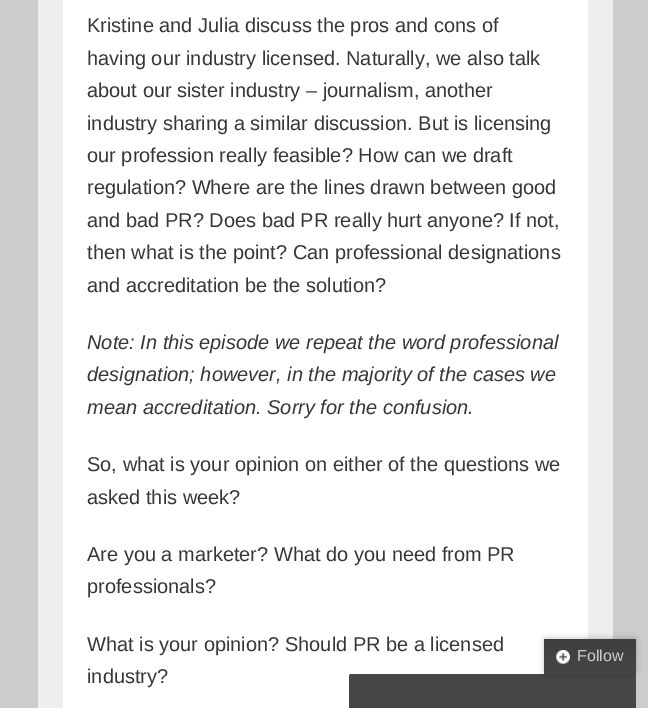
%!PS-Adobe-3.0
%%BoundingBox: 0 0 648 708
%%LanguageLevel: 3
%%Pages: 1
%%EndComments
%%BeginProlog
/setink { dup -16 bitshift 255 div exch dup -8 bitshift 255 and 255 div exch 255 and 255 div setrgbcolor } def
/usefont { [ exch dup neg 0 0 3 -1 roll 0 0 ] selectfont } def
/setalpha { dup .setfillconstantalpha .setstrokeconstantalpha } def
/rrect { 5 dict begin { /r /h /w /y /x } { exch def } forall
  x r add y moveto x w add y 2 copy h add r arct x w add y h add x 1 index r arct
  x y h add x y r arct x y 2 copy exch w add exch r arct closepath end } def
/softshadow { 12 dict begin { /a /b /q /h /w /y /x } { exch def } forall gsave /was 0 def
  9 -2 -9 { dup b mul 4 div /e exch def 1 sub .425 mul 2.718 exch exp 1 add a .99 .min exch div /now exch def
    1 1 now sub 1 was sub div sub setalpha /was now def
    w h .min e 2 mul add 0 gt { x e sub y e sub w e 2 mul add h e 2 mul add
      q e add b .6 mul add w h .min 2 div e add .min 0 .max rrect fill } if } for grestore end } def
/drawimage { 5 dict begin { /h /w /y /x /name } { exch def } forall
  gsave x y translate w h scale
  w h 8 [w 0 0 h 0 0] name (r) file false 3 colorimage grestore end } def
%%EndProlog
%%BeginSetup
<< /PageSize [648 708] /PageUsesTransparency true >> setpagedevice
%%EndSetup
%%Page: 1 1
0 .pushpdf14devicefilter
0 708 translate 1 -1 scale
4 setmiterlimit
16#CCCCCC setink
0 0 648 708 rectfill
16#EEEEEE setink
38 0 575 708 rectfill
16#FFFFFF setink
63 0 525 708 rectfill
/LiberationSans-Regular 20 usefont
16#373737 setink
[
    [(Kristine and Julia discuss the pros and cons of) 87 32]
    [(having our industry licensed. Naturally, we also talk) 87 65]
    [(about our sister industry – journalism, another) 87 97]
    [(industry sharing a similar discussion. But is licensing) 87 130]
    [(our profession really feasible? How can we draft) 87 162]
    [(regulation? Where are the lines drawn between good) 87 194]
    [(and bad PR? Does bad PR really hurt anyone? If not,) 87 227]
    [(then what is the point? Can professional designations) 87 259]
    [(and accreditation be the solution?) 87 292]
] { aload pop moveto show } forall
/LiberationSans-Italic 20 usefont
[
    [(Note: In this episode we repeat the word professional) 87 349]
    [(designation; however, in the majority of the cases we) 87 381]
    [(mean accreditation. Sorry for the confusion.) 87 414]
] { aload pop moveto show } forall
/LiberationSans-Regular 20 usefont
[
    [(So, what is your opinion on either of the questions we) 87 471]
    [(asked this week?) 87 504]
    [(Are you a marketer? What do you need from PR) 87 561]
    [(professionals?) 87 593]
    [(What is your opinion? Should PR be a licensed) 87 651]
    [(industry?) 87 683]
] { aload pop moveto show } forall
16#464646 setink
351.5 674 moveto 636 674 lineto 636 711 lineto 349 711 lineto 349 676.5 lineto 349 675 350 674 351.5 674 curveto closepath fill
16#000000 setink
544 638 92 35 2.5 3 0.2 softshadow
gsave 546.5 639 moveto 633.5 639 lineto 635 639 636 640 636 641.5 curveto 636 674 lineto 544 674 lineto 544 641.5 lineto 544 640 545 639 546.5 639 curveto closepath clip newpath
<< /ShadingType 2 /ColorSpace /DeviceRGB /Coords [544 639 544 674] /Extend [true true] /Function << /FunctionType 2 /Domain [0 1] /C0 [0.247 0.247 0.247] /C1 [0.275 0.275 0.275] /N 1 >> >> shfill grestore
(img1.raw) 556 650 14 14 drawimage
/LiberationSans-Regular 16 usefont
16#CCCCCC setink
577 661 moveto (Follow) show
.poppdf14devicefilter showpage
%%EOF
